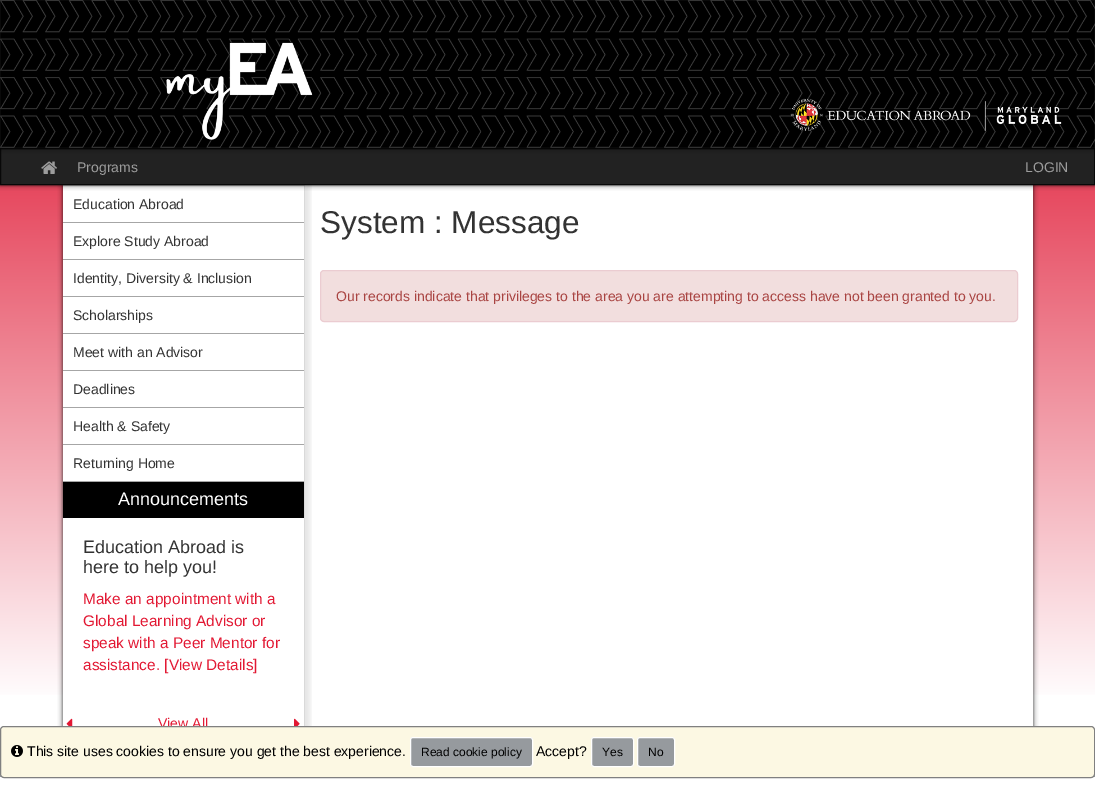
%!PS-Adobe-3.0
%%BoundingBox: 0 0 1095 798
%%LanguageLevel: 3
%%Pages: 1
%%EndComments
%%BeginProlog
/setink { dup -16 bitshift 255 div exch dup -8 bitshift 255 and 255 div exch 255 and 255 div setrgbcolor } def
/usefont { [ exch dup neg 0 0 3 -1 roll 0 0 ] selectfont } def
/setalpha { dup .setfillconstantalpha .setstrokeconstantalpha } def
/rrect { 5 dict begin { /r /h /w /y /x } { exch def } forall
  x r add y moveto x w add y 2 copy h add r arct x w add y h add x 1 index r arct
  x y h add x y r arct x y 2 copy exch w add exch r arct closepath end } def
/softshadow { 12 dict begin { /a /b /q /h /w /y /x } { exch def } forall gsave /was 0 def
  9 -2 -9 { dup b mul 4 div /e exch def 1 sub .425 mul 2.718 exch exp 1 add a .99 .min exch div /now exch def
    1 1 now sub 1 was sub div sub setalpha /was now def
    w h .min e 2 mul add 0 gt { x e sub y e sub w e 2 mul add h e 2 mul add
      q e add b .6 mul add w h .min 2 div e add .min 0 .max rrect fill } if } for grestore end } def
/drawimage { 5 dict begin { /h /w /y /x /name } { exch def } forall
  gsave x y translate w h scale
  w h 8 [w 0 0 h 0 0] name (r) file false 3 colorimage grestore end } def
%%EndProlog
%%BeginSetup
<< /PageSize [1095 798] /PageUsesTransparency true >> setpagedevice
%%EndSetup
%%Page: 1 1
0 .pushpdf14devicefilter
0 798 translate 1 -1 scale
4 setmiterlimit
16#FFFFFF setink
0 0 1095 798 rectfill
gsave 0 0 moveto 1095 0 lineto 1095 695 lineto 0 695 lineto closepath clip newpath
<< /ShadingType 2 /ColorSpace /DeviceRGB /Coords [548 0 548 798] /Extend [true true] /Function << /FunctionType 3 /Domain [0 1] /Functions [<< /FunctionType 2 /Domain [0 1] /C0 [0.878 0.094 0.204] /C1 [0.878 0.094 0.204] /N 1 >> << /FunctionType 2 /Domain [0 1] /C0 [0.878 0.094 0.204] /C1 [1 1 1] /N 1 >> << /FunctionType 2 /Domain [0 1] /C0 [1 1 1] /C1 [1 1 1] /N 1 >>] /Bounds [0.06 0.88] /Encode [0 1 0 1 0 1] >> >> shfill grestore
16#000000 setink
63 185 970 549 0 2.5 0.8 softshadow
16#FFFFFF setink
63 185 970 541 rectfill
gsave
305 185 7 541 rectclip
16#000000 setink
68 185 242 549 0 2.5 0.1 softshadow
grestore
16#D9D9D9 setink
63 185 moveto 305 185 lineto 304 186 lineto 63 186 lineto closepath fill
0.15 setalpha
16#000000 setink
305 185 moveto 305 734 lineto 304 733 lineto 304 186 lineto closepath fill
1 setalpha
0 148 1095 37 0 2.5 0.8 softshadow
16#222222 setink
0.5 148.5 moveto 1094.5 148.5 lineto 1094.5 184.5 lineto 0.5 184.5 lineto closepath gsave fill grestore
16#080808 setink
stroke
16#000000 setink
0 0 1095 148 0 2.5 0.8 softshadow
(img1.raw) 0 0 1095 148 drawimage
(img2.raw) 41 161 16 13 drawimage
/LiberationSans-Regular 14 usefont
16#9D9D9D setink
77 172 moveto (Programs) show
1025 172 moveto (LOGIN) show
16#A6A6A6 setink
63 222 241 1 rectfill
16#333333 setink
73 209 moveto (Education Abroad) show
16#A6A6A6 setink
63 259 241 1 rectfill
16#333333 setink
73 246 moveto (Explore Study Abroad) show
16#A6A6A6 setink
63 296 241 1 rectfill
16#333333 setink
73 283 moveto (Identity, Diversity & Inclusion) show
16#A6A6A6 setink
63 333 241 1 rectfill
16#333333 setink
73 320 moveto (Scholarships) show
16#A6A6A6 setink
63 370 241 1 rectfill
16#333333 setink
73 357 moveto (Meet with an Advisor) show
16#A6A6A6 setink
63 407 241 1 rectfill
16#333333 setink
73 394 moveto (Deadlines) show
16#A6A6A6 setink
63 444 241 1 rectfill
16#333333 setink
73 431 moveto (Health & Safety) show
16#A6A6A6 setink
63 481 241 1 rectfill
16#333333 setink
73 468 moveto (Returning Home) show
16#000000 setink
63 482 241 36 rectfill
/LiberationSans-Regular 18 usefont
16#FFFFFF setink
118 505 moveto (Announcements) show
16#333333 setink
83 553 moveto (Education Abroad is) show
83 573 moveto (here to help you!) show
/LiberationSans-Regular 15.4 usefont
16#E21833 setink
[
    [(Make an appointment with a) 83 604]
    [(Global Learning Advisor or) 83 626]
    [(speak with a Peer Mentor for) 83 648]
    [(assistance. [View Details]) 83 670]
] { aload pop moveto show } forall
(img3.raw) 66 718 7 8 drawimage
/LiberationSans-Regular 14 usefont
158 728 moveto (View All) show
(img4.raw) 294 718 6 8 drawimage
/LiberationSans-Regular 31.5 usefont
16#333333 setink
320 233 moveto (System : Message) show
16#F2DEDE setink
320.5 270.5 697 51 3.5 rrect gsave fill grestore
16#EBCCD1 setink
stroke
/LiberationSans-Regular 14 usefont
16#A94442 setink
336 301 moveto (Our records indicate that privileges to the area you are attempting to access have not been granted to you.) show
16#969A9E setink
0 775 1095 2 rectfill
16#FCF8E3 setink
0.5 726.5 1094 51 3.5 rrect gsave fill grestore
16#808080 setink
stroke
(img5.raw) 11 745 12 12 drawimage
16#000000 setink
27 756 moveto (This site uses cookies to ensure you get the best experience.) show
16#969A9E setink
410.5 737.5 122 29 2.5 rrect gsave fill grestore
16#FFFFFF setink
stroke
/LiberationSans-Regular 12 usefont
16#000000 setink
421 756 moveto (Read cookie policy) show
/LiberationSans-Regular 14 usefont
536 756 moveto (Accept?) show
16#969A9E setink
591.5 737.5 42 29 2.5 rrect gsave fill grestore
16#FFFFFF setink
stroke
/LiberationSans-Regular 12 usefont
16#000000 setink
602 756 moveto (Yes) show
16#969A9E setink
637.5 737.5 37 29 2.5 rrect gsave fill grestore
16#FFFFFF setink
stroke
16#000000 setink
648 756 moveto (No) show
.poppdf14devicefilter showpage
%%EOF
